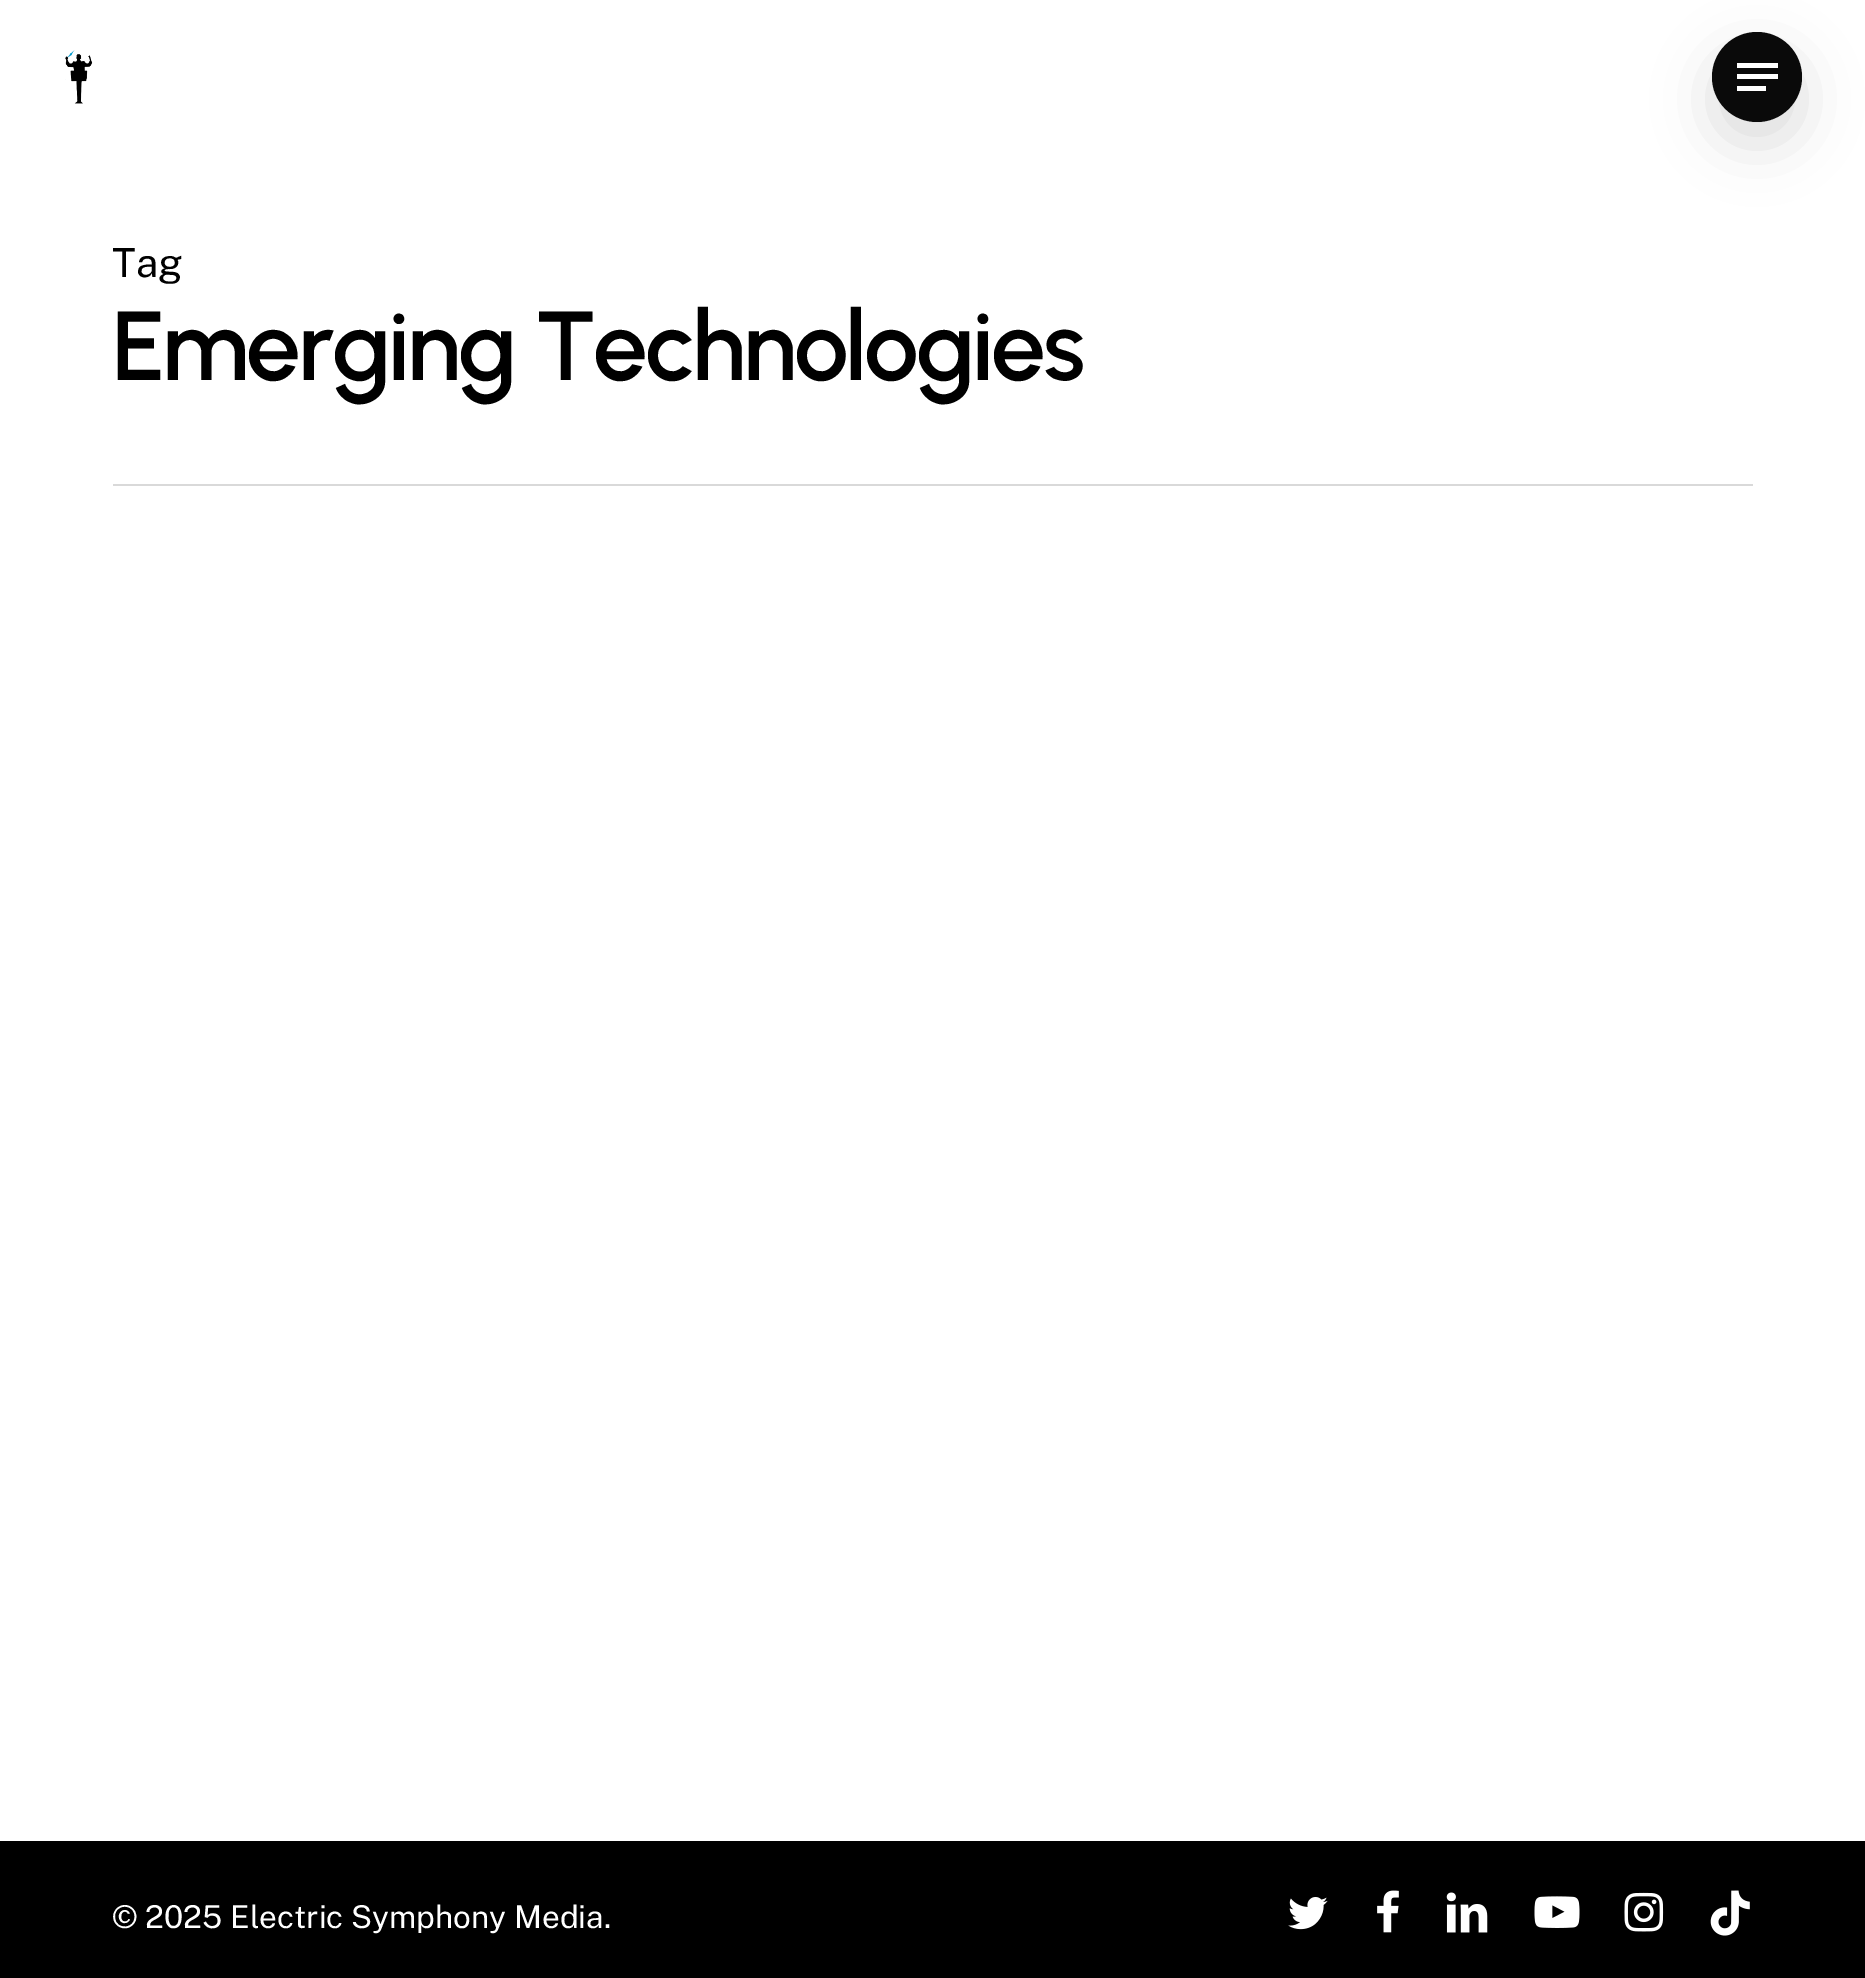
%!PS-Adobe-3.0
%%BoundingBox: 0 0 1865 1978
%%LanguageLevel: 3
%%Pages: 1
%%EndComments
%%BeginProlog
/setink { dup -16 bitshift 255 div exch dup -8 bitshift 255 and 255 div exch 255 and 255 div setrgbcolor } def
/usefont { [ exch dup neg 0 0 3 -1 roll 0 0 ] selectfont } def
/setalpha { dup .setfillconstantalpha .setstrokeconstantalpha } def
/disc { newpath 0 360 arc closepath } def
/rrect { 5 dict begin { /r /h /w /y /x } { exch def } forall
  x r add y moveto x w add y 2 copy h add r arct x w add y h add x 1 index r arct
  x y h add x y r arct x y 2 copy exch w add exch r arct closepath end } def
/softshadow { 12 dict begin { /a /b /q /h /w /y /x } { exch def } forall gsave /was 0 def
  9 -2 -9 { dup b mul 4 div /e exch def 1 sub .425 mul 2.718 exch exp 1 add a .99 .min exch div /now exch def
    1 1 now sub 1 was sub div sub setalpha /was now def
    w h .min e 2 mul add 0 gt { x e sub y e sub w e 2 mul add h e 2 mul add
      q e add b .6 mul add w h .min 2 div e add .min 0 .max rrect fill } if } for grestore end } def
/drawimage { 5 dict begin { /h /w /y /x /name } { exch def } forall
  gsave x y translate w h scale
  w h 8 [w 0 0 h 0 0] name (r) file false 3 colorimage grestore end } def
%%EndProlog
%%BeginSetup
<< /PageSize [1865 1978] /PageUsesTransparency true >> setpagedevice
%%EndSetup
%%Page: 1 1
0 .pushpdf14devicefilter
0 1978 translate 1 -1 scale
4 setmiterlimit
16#FFFFFF setink
0 0 1865 1978 rectfill
(img1.raw) 65 50 28 54 drawimage
16#000000 setink
1712 54 90 90 45 28 0.13 softshadow
16#0A0A0A setink
1757 77 45 disc fill
[
    [1737 63 41 5 16#FFFFFF]
    [1737 86 29 5 16#FFFFFF]
    [1737 74 41 5 16#FFFFFF]
    [113 484 1640 2 16#D9D9D9]
] { aload pop setink rectfill } forall
/PublicSans-Regular 40 usefont
16#000000 setink
112 277 moveto (Tag) show
/Urbanist-SemiBold 97.75 usefont
112 380 moveto -2.9 0 (Emerging Technologies) ashow
0 1841 1865 137 rectfill
/PublicSans-Regular 31.5 usefont
16#FFFFFF setink
112 1928 moveto (© 2025 Electric Symphony Media.) show
(img2.raw) 1288 1897 40 33 drawimage
(img3.raw) 1377 1890 22 43 drawimage
(img4.raw) 1446 1892 42 41 drawimage
(img5.raw) 1534 1896 46 32 drawimage
(img6.raw) 1624 1892 40 40 drawimage
(img7.raw) 1710 1890 40 46 drawimage
.poppdf14devicefilter showpage
%%EOF
